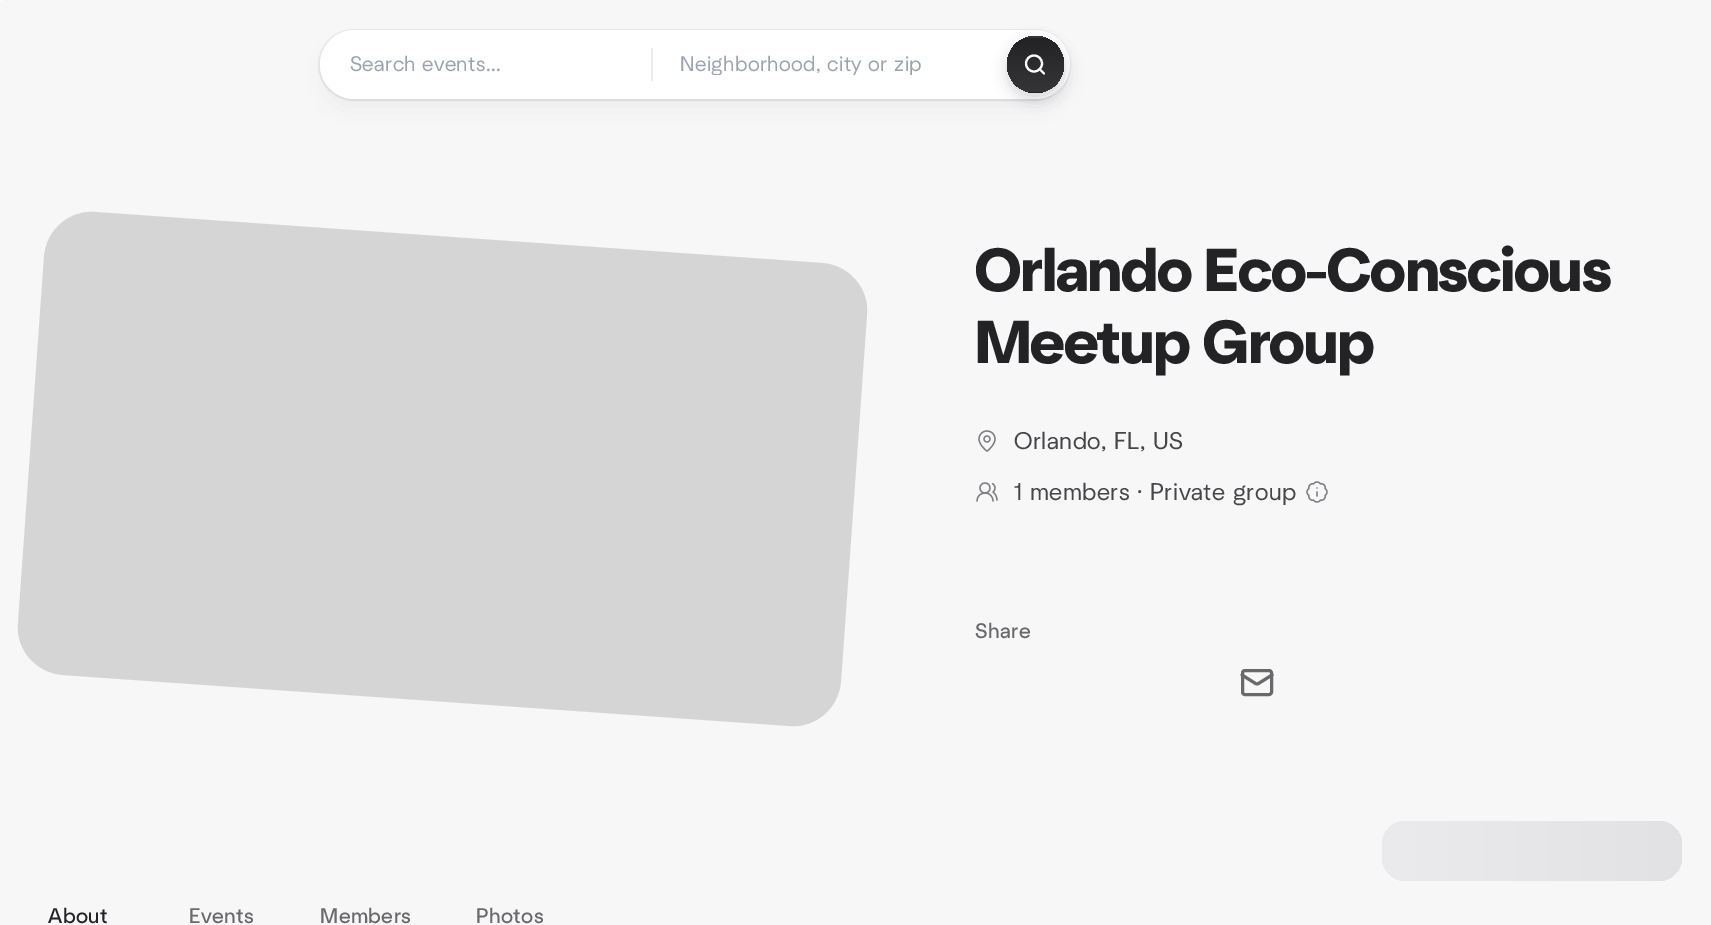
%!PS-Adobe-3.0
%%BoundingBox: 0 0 1711 925
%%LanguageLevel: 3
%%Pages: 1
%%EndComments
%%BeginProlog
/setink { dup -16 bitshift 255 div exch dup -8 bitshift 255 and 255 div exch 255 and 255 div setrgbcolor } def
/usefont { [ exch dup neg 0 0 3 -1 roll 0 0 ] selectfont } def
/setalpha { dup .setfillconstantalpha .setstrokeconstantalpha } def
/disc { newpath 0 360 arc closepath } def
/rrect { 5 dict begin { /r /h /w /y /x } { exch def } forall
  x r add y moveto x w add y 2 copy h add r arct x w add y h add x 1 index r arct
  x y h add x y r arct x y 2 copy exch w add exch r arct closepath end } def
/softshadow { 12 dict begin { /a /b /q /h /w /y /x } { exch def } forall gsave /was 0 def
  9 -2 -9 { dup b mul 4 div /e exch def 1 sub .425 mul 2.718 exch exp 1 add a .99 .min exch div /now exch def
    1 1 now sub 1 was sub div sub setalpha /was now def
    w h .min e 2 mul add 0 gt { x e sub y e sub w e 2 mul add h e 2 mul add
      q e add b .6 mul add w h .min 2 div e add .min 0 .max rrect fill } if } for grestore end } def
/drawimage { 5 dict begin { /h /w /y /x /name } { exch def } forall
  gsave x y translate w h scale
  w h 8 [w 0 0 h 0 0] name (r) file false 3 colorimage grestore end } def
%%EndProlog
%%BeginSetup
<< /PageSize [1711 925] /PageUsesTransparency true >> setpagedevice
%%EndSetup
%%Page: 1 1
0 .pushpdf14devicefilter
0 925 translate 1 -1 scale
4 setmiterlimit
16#F7F7F8 setink
0 0 1711 925 rectfill
16#FFFFFF setink
0 0 2 1 rectfill
16#E8E8EA setink
2 setlinewidth
319 30 751 70 35 rrect stroke
16#000010 setink
326 48 738 57 28.5 12 0.06 softshadow
16#FFFFFF setink
320 30 750 69 34.5 rrect fill
16#EBEBEE setink
651 48 2 33 rectfill
/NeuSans-Regular 21 usefont
16#9CA3AF setink
350 71 moveto 0.4 0 (Search events...) ashow
gsave
680 54 303 21 rectclip
680 71 moveto 0.4 0 (Neighborhood, city or zip) ashow
grestore
16#000010 setink
1007 42 57 57 28.5 7.5 0.16 softshadow
gsave
1007 36 57 57 28.5 rrect clip newpath
gsave 1025 36 moveto 1046 36 lineto 1046 38 lineto 1025 38 lineto closepath clip newpath
<< /ShadingType 2 /ColorSpace /DeviceRGB /Coords [1035 -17 1035 38] /Extend [true true] /Function << /FunctionType 2 /Domain [0 1] /C0 [0.137 0.137 0.149] /C1 [0.208 0.208 0.22] /N 1 >> >> shfill grestore
gsave 1007 38 moveto 1064 38 lineto 1064 92 lineto 1007 92 lineto closepath clip newpath
<< /ShadingType 2 /ColorSpace /DeviceRGB /Coords [1035 37 1035 92] /Extend [true true] /Function << /FunctionType 2 /Domain [0 1] /C0 [0.137 0.137 0.149] /C1 [0.208 0.208 0.22] /N 1 >> >> shfill grestore
gsave 1028 92 moveto 1043 92 lineto 1043 93 lineto 1028 93 lineto closepath clip newpath
<< /ShadingType 2 /ColorSpace /DeviceRGB /Coords [1035 92 1035 146] /Extend [true true] /Function << /FunctionType 2 /Domain [0 1] /C0 [0.137 0.137 0.149] /C1 [0.208 0.208 0.22] /N 1 >> >> shfill grestore
grestore
16#FFFFFF setink
2.1 setlinewidth
1 setlinecap
1 setlinejoin
1044 73.5 moveto 1039.5 69 lineto stroke
0 setlinecap
0 setlinejoin
1034 63.5 8 disc stroke
16#D5D5D6 setink
95 212 moveto 822 263 lineto 849 265 869 288 867 314 curveto 841 681 lineto 839 708 816 728 790 726 curveto 63 675 lineto 36 673 16 650 18 624 curveto 44 257 lineto 46 230 69 210 95 212 curveto closepath fill
/NeuSans-Bold 60 usefont
16#232326 setink
975 291 moveto -1.2 0 (Orlando Eco-Conscious) ashow
975 363 moveto -1.2 0 (Meetup Group) ashow
(img1.raw) 978 430 18 22 drawimage
/NeuSans-Regular 24 usefont
16#464649 setink
1014 449 moveto 0.5 0 (Orlando, FL, US) ashow
(img2.raw) 976 482 22 20 drawimage
1014 500 moveto 0.5 0 (1 members · Private group) ashow
(img3.raw) 1306 481 22 22 drawimage
/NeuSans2-Regular 21 usefont
16#69696C setink
975 638 moveto 0.4 0 (Share) ashow
3 setlinewidth
1 setlinecap
1 setlinejoin
1272 675 moveto 1258.5 683.5 lineto 1257.5 684 1256.5 684 1255.5 683.5 curveto 1242 675 lineto stroke
0 setlinecap
0 setlinejoin
1242.5 670.5 29 24 2.5 rrect stroke
gsave 1382 821 300 60 24 rrect clip newpath
<< /ShadingType 2 /ColorSpace /DeviceRGB /Coords [1382 851 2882 851] /Extend [true true] /Function << /FunctionType 3 /Domain [0 1] /Functions [<< /FunctionType 2 /Domain [0 1] /C0 [0.922 0.922 0.933] /C1 [0.867 0.867 0.882] /N 1 >> << /FunctionType 2 /Domain [0 1] /C0 [0.867 0.867 0.882] /C1 [0.922 0.922 0.933] /N 1 >> << /FunctionType 2 /Domain [0 1] /C0 [0.922 0.922 0.933] /C1 [0.922 0.922 0.933] /N 1 >>] /Bounds [0.3 0.6] /Encode [0 1 0 1 0 1] >> >> shfill grestore
16#232326 setink
48 923 moveto 0.4 0 (About) ashow
16#69696C setink
189 923 moveto 0.4 0 (Events) ashow
320 923 moveto 0.4 0 (Members) ashow
476 923 moveto 0.4 0 (Photos) ashow
.poppdf14devicefilter showpage
%%EOF
